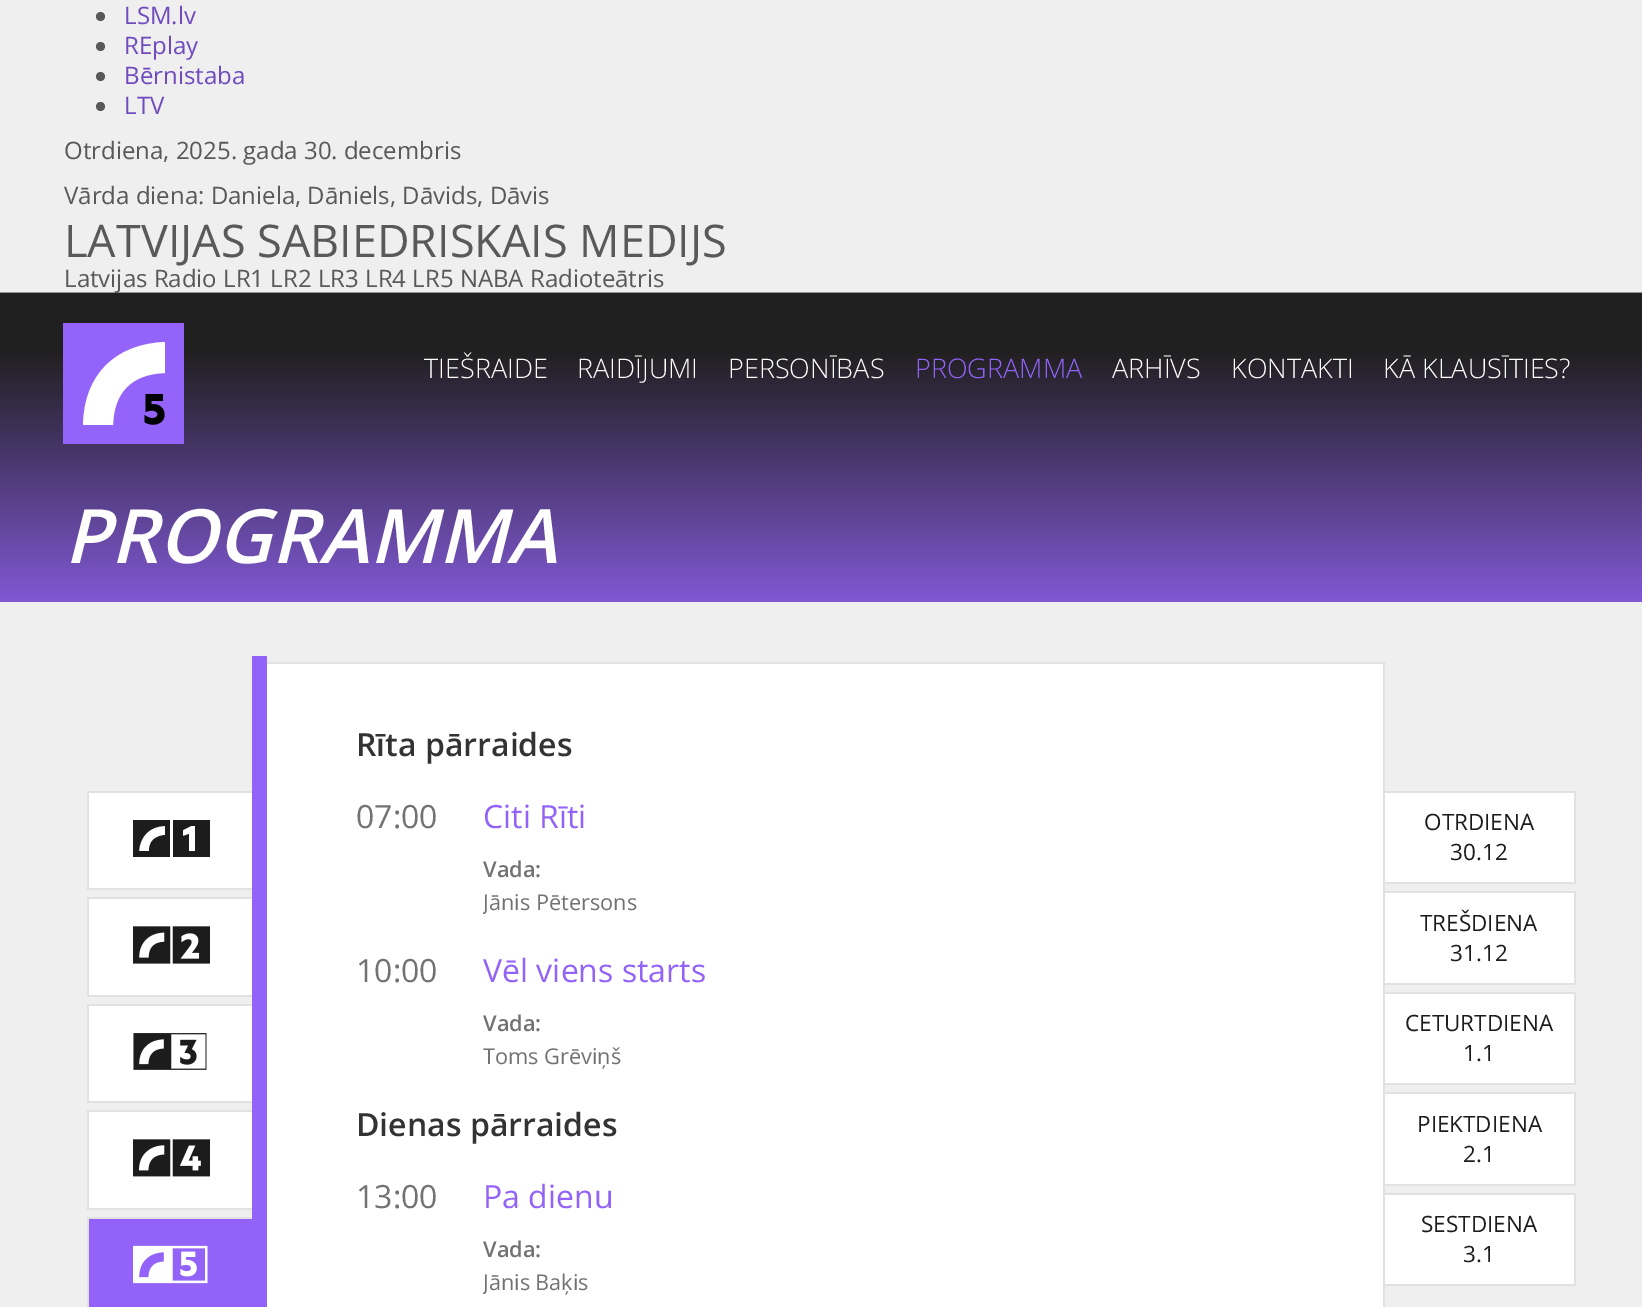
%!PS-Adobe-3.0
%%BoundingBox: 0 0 1642 1307
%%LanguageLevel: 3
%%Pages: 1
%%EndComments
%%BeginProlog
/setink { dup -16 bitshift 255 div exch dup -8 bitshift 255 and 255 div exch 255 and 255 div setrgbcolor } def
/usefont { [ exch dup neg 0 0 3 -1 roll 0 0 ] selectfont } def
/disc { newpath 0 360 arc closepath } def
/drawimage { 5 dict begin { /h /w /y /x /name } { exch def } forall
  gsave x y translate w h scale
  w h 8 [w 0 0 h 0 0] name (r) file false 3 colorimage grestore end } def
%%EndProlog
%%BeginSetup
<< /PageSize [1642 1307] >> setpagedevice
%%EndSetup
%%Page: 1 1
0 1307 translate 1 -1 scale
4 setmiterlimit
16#EFEFEF setink
0 0 1642 1307 rectfill
16#595959 setink
100.5 16.5 4.5 disc fill
/OpenSans-Regular 24 usefont
16#704BBE setink
124 24 moveto (LSM.lv) show
16#595959 setink
100.5 46.5 4.5 disc fill
16#704BBE setink
124 54 moveto (REplay) show
16#595959 setink
100.5 76.5 4.5 disc fill
16#704BBE setink
124 84 moveto (Bērnistaba) show
16#595959 setink
100.5 106.5 4.5 disc fill
16#704BBE setink
124 114 moveto (LTV) show
16#595959 setink
64 159 moveto (Otrdiena, 2025. gada 30. decembris) show
64 204 moveto (Vārda diena: Daniela, Dāniels, Dāvids, Dāvis) show
/OpenSans-Regular 45 usefont
64 257 moveto (LATVIJAS SABIEDRISKAIS MEDIJS) show
/OpenSans-Regular 24 usefont
64 287 moveto (Latvijas Radio LR1 LR2 LR3 LR4 LR5 NABA Radioteātris) show
(img1.raw) 0 292 1642 1 drawimage
gsave 0 293 moveto 1642 293 lineto 1642 602 lineto 0 602 lineto closepath clip newpath
<< /ShadingType 2 /ColorSpace /DeviceRGB /Coords [821 292 821 602] /Extend [true true] /Function << /FunctionType 3 /Domain [0 1] /Functions [<< /FunctionType 2 /Domain [0 1] /C0 [0.129 0.125 0.125] /C1 [0.129 0.125 0.125] /N 1 >> << /FunctionType 2 /Domain [0 1] /C0 [0.129 0.125 0.125] /C1 [0.502 0.345 0.827] /N 1 >>] /Bounds [0.19] /Encode [0 1 0 1] >> >> shfill grestore
16#9464FA setink
63 323 121 121 rectfill
16#FFFFFF setink
83 425 moveto 113 425 lineto 114 392 132 374 165 373 curveto 165 342 lineto 115 344 84 375 83 425 curveto closepath fill
16#000000 setink
164.5 414.5 moveto 164.5 425 151.5 427 144.5 422 curveto 144.5 415 lineto 146.5 416.5 149 418 151.5 418 curveto 161 419 159.5 406.5 145.5 412 curveto 145.5 394 lineto 163 394 lineto 163 401 lineto 151.5 401 lineto 151.5 404.5 lineto 158 403 164.5 407.5 164.5 414.5 curveto fill
/OpenSans-Light 27 usefont
16#FFFFFF setink
[
    [(TIEŠRAIDE) 424 378]
    [(RAIDĪJUMI) 577 378]
    [(PERSONĪBAS) 728 378]
] { aload pop moveto show } forall
16#9363F9 setink
915 378 moveto (PROGRAMMA) show
16#FFFFFF setink
[
    [(ARHĪVS) 1112 378]
    [(KONTAKTI) 1231 378]
    [(KĀ KLAUSĪTIES?) 1383 378]
] { aload pop moveto show } forall
/OpenSans-SemiBoldItalic 75 usefont
64 563 moveto (PROGRAMMA) show
[
    [252 656 15 651 16#9363F9]
    [89 793 163 95 16#FFFFFF]
    [87 791 165 2 16#E1E1E1]
    [87 888 165 2 16#E1E1E1]
    [87 791 2 99 16#E1E1E1]
] { aload pop setink rectfill } forall
16#1C1C1C setink
133 820 moveto 133 857 lineto 170 857 lineto 170 820 lineto closepath 165 835 moveto 155 836 149 841 149 851 curveto 139 851 lineto 140 836 150 826 165 826 curveto closepath 173 820 moveto 173 857 lineto 210 857 lineto 210 820 lineto closepath 195 851 moveto 189 851 lineto 189 834 lineto 183 836 lineto 183 830 lineto 191 826 lineto 195 826 lineto closepath fill
[
    [89 899 163 96 16#FFFFFF]
    [87 897 165 2 16#E1E1E1]
    [87 995 165 2 16#E1E1E1]
    [87 897 2 99 16#E1E1E1]
] { aload pop setink rectfill } forall
(img2.raw) 133 926 77 38 drawimage
[
    [89 1006 163 95 16#FFFFFF]
    [87 1004 165 2 16#E1E1E1]
    [87 1101 165 2 16#E1E1E1]
    [87 1004 2 99 16#E1E1E1]
] { aload pop setink rectfill } forall
(img3.raw) 133 1033 74 37 drawimage
[
    [89 1112 163 96 16#FFFFFF]
    [87 1110 165 2 16#E1E1E1]
    [87 1208 165 2 16#E1E1E1]
    [87 1110 2 99 16#E1E1E1]
] { aload pop setink rectfill } forall
(img4.raw) 133 1139 77 38 drawimage
[
    [89 1219 163 88 16#9363F9]
    [87 1217 165 2 16#E1E1E1]
    [87 1217 2 90 16#E1E1E1]
] { aload pop setink rectfill } forall
(img5.raw) 133 1245 75 39 drawimage
[
    [267 664 1116 643 16#FFFFFF]
    [267 662 1118 2 16#E1E1E1]
    [1383 662 2 645 16#E1E1E1]
] { aload pop setink rectfill } forall
/OpenSans-SemiBold 32 usefont
16#333333 setink
356 756 moveto (Rīta pārraides) show
/OpenSans-Regular 32 usefont
16#727272 setink
356 828 moveto (07:00) show
16#9363F9 setink
483 828 moveto (Citi Rīti) show
/OpenSans-SemiBold 21.75 usefont
16#727272 setink
483 877 moveto (Vada:) show
gsave
483 888 855 32 rectclip
/OpenSans-Regular 21.75 usefont
483 910 moveto (Jānis Pētersons) show
grestore
/OpenSans-Regular 32 usefont
356 982 moveto (10:00) show
16#9363F9 setink
483 982 moveto (Vēl viens starts) show
/OpenSans-SemiBold 21.75 usefont
16#727272 setink
483 1031 moveto (Vada:) show
/OpenSans-Regular 21.75 usefont
483 1064 moveto (Toms Grēviņš) show
/OpenSans-SemiBold 32 usefont
16#333333 setink
356 1136 moveto (Dienas pārraides) show
/OpenSans-Regular 32 usefont
16#727272 setink
356 1208 moveto (13:00) show
16#9363F9 setink
483 1208 moveto (Pa dienu) show
/OpenSans-SemiBold 21.75 usefont
16#727272 setink
483 1257 moveto (Vada:) show
gsave
483 1268 855 31 rectclip
/OpenSans-Regular 21.75 usefont
483 1290 moveto (Jānis) show
grestore
/OpenSans-Regular 21.75 usefont
535 1290 moveto (Baķis) show
[
    [1385 793 189 89 16#FFFFFF]
    [1385 791 190 2 16#E1E1E1]
    [1574 791 2 93 16#E1E1E1]
    [1385 882 190 2 16#E1E1E1]
] { aload pop setink rectfill } forall
/OpenSans-Regular 22.5 usefont
16#1C1C1C setink
1424 830 moveto (OTRDIENA) show
1450 860 moveto (30.12) show
[
    [1385 893 189 90 16#FFFFFF]
    [1385 891 190 2 16#E1E1E1]
    [1574 891 2 93 16#E1E1E1]
    [1385 983 190 2 16#E1E1E1]
] { aload pop setink rectfill } forall
16#1C1C1C setink
1420 931 moveto (TREŠDIENA) show
1450 961 moveto (31.12) show
[
    [1385 994 189 89 16#FFFFFF]
    [1385 992 190 2 16#E1E1E1]
    [1574 992 2 93 16#E1E1E1]
    [1385 1083 190 2 16#E1E1E1]
] { aload pop setink rectfill } forall
16#1C1C1C setink
1405 1031 moveto (CETURTDIENA) show
1463 1061 moveto (1.1) show
[
    [1385 1094 189 90 16#FFFFFF]
    [1385 1092 190 2 16#E1E1E1]
    [1574 1092 2 93 16#E1E1E1]
    [1385 1184 190 2 16#E1E1E1]
] { aload pop setink rectfill } forall
16#1C1C1C setink
1417 1132 moveto (PIEKTDIENA) show
1463 1162 moveto (2.1) show
[
    [1385 1195 189 89 16#FFFFFF]
    [1385 1193 190 2 16#E1E1E1]
    [1574 1193 2 93 16#E1E1E1]
    [1385 1284 190 2 16#E1E1E1]
] { aload pop setink rectfill } forall
16#1C1C1C setink
1421 1232 moveto (SESTDIENA) show
1463 1262 moveto (3.1) show
showpage
%%EOF
